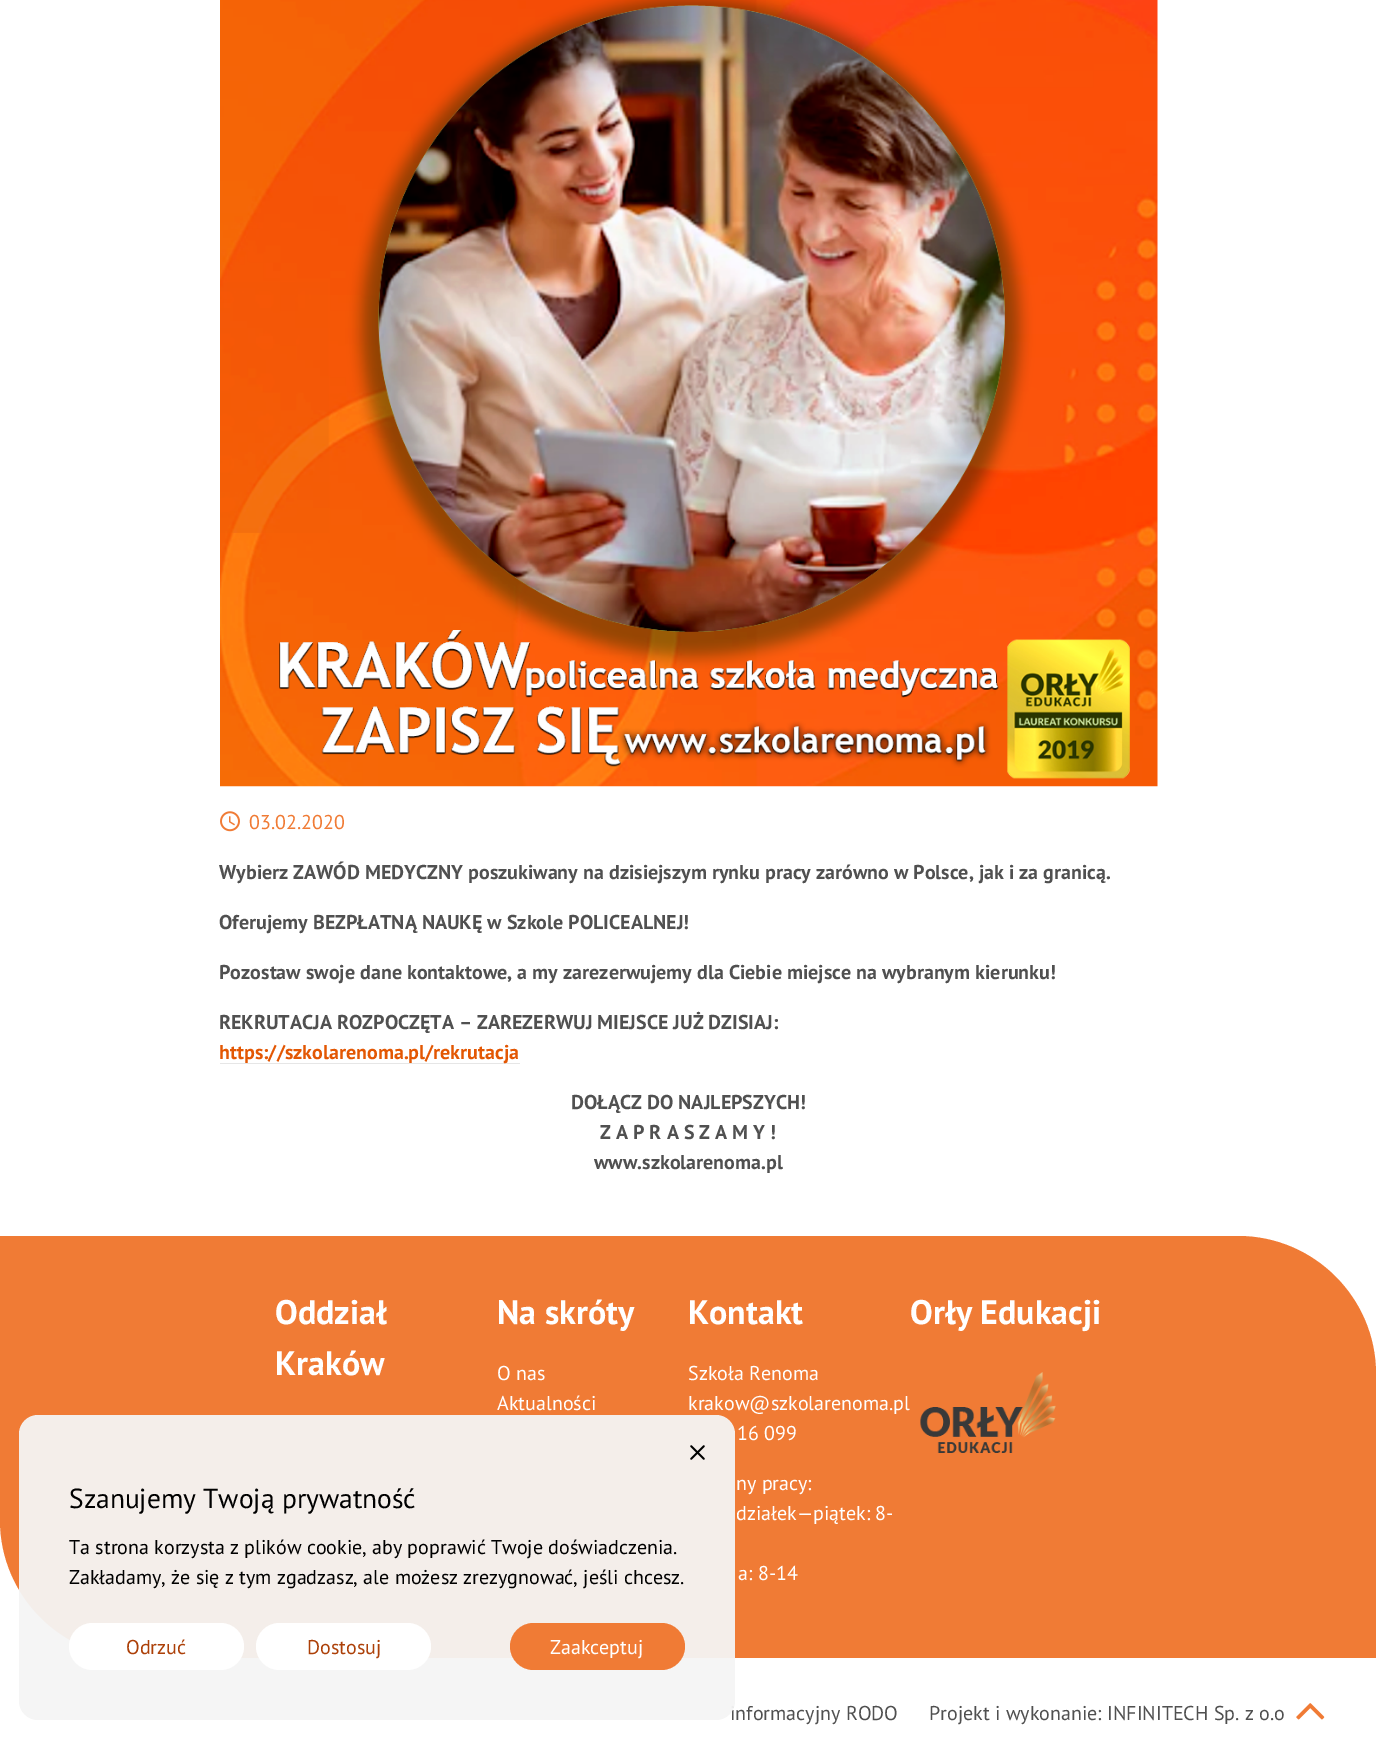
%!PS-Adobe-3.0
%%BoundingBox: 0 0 1376 1738
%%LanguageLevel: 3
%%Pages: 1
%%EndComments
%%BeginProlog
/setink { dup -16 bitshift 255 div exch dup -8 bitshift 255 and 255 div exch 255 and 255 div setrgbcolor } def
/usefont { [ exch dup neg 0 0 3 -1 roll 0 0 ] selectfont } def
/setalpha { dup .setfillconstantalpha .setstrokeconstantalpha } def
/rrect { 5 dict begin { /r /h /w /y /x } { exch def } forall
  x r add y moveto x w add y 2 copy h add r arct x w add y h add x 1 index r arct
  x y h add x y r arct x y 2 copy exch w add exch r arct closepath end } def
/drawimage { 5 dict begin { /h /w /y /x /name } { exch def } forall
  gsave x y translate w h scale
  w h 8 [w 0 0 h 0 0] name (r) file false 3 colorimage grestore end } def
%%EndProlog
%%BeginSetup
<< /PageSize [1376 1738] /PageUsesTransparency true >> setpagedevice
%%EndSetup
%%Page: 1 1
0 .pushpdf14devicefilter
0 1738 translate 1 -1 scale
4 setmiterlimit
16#FFFFFF setink
0 0 1376 1738 rectfill
(img1.raw) 220 0 938 787 drawimage
(img2.raw) 220 811 20 21 drawimage
/PTSans-Regular 20 usefont
16#F07B35 setink
249 829 moveto (03.02.2020) show
/PTSans-Bold 20 usefont
16#505050 setink
[
    [(Wybierz ZAWÓD MEDYCZNY poszukiwany na dzisiejszym rynku pracy zarówno w Polsce, jak i za granicą.) 219 879]
    [(Oferujemy BEZPŁATNĄ NAUKĘ w Szkole POLICEALNEJ!) 219 929]
    [(Pozostaw swoje dane kontaktowe, a my zarezerwujemy dla Ciebie miejsce na wybranym kierunku!) 219 979]
    [(REKRUTACJA ROZPOCZĘTA – ZAREZERWUJ MIEJSCE JUŻ DZISIAJ:) 219 1029]
] { aload pop moveto show } forall
16#E6E6E6 setink
220 1063 300 1 rectfill
16#E35703 setink
219 1059 moveto (https://szkolarenoma.pl/rekrutacja) show
16#505050 setink
[
    [(DOŁĄCZ DO NAJLEPSZYCH!) 571 1109]
    [(Z A P R A S Z A M Y !) 600 1139]
    [(www.szkolarenoma.pl) 594 1169]
] { aload pop moveto show } forall
16#F07B35 setink
0 1236 moveto 1238 1236 lineto 1314 1236 1376 1298 1376 1374 curveto 1376 1658 lineto 138 1658 lineto 62 1658 0 1596 0 1520 curveto closepath fill
/PTSans-Bold 34 usefont
16#FFFFFF setink
[
    [(Oddział) 275 1324]
    [(Kraków) 275 1375]
    [(Na skróty) 497 1324]
] { aload pop moveto show } forall
/PTSans-Regular 20 usefont
497 1380 moveto (O nas) show
497 1410 moveto (Aktualności) show
/PTSans-Bold 34 usefont
688 1324 moveto (Kontakt) show
/PTSans-Regular 20 usefont
[
    [(Szkoła Renoma) 688 1380]
    [(krakow@szkolarenoma.pl) 688 1410]
    [(16 099) 737 1440]
    [(ny pracy:) 736 1490]
    [(działek—piątek: 8-) 736 1520]
    [(a: 8-14) 738 1580]
] { aload pop moveto show } forall
/PTSans-Bold 34 usefont
910 1324 moveto (Orły Edukacji) show
(img3.raw) 920 1372 136 81 drawimage
/PTSans-Regular 20 usefont
16#505050 setink
730 1720 moveto (informacyjny RODO) show
0.95 setalpha
16#F4F4F4 setink
19 1415 716 305 19 rrect fill
1 setalpha
(img4.raw) 690 1445 15 15 drawimage
/PTSans-Regular 27.5 usefont
16#000000 setink
69 1508 moveto (Szanujemy Twoją prywatność) show
/PTSans-Regular 20 usefont
69 1554 moveto (Ta strona korzysta z plików cookie, aby poprawić Twoje doświadczenia.) show
69 1584 moveto (Zakładamy, że się z tym zgadzasz, ale możesz zrezygnować, jeśli chcesz.) show
16#FFFFFF setink
69 1623 175 47 23.5 rrect fill
16#AC4008 setink
126 1654 moveto (Odrzuć) show
16#FFFFFF setink
256 1623 175 47 23.5 rrect fill
16#AC4008 setink
307 1654 moveto (Dostosuj) show
16#F07B35 setink
510 1623 175 47 23.5 rrect fill
16#FFFFFF setink
550 1654 moveto (Zaakceptuj) show
16#505050 setink
929 1720 moveto (Projekt i wykonanie: INFINITECH Sp. z o.o) show
(img5.raw) 1296 1703 29 17 drawimage
.poppdf14devicefilter showpage
%%EOF
